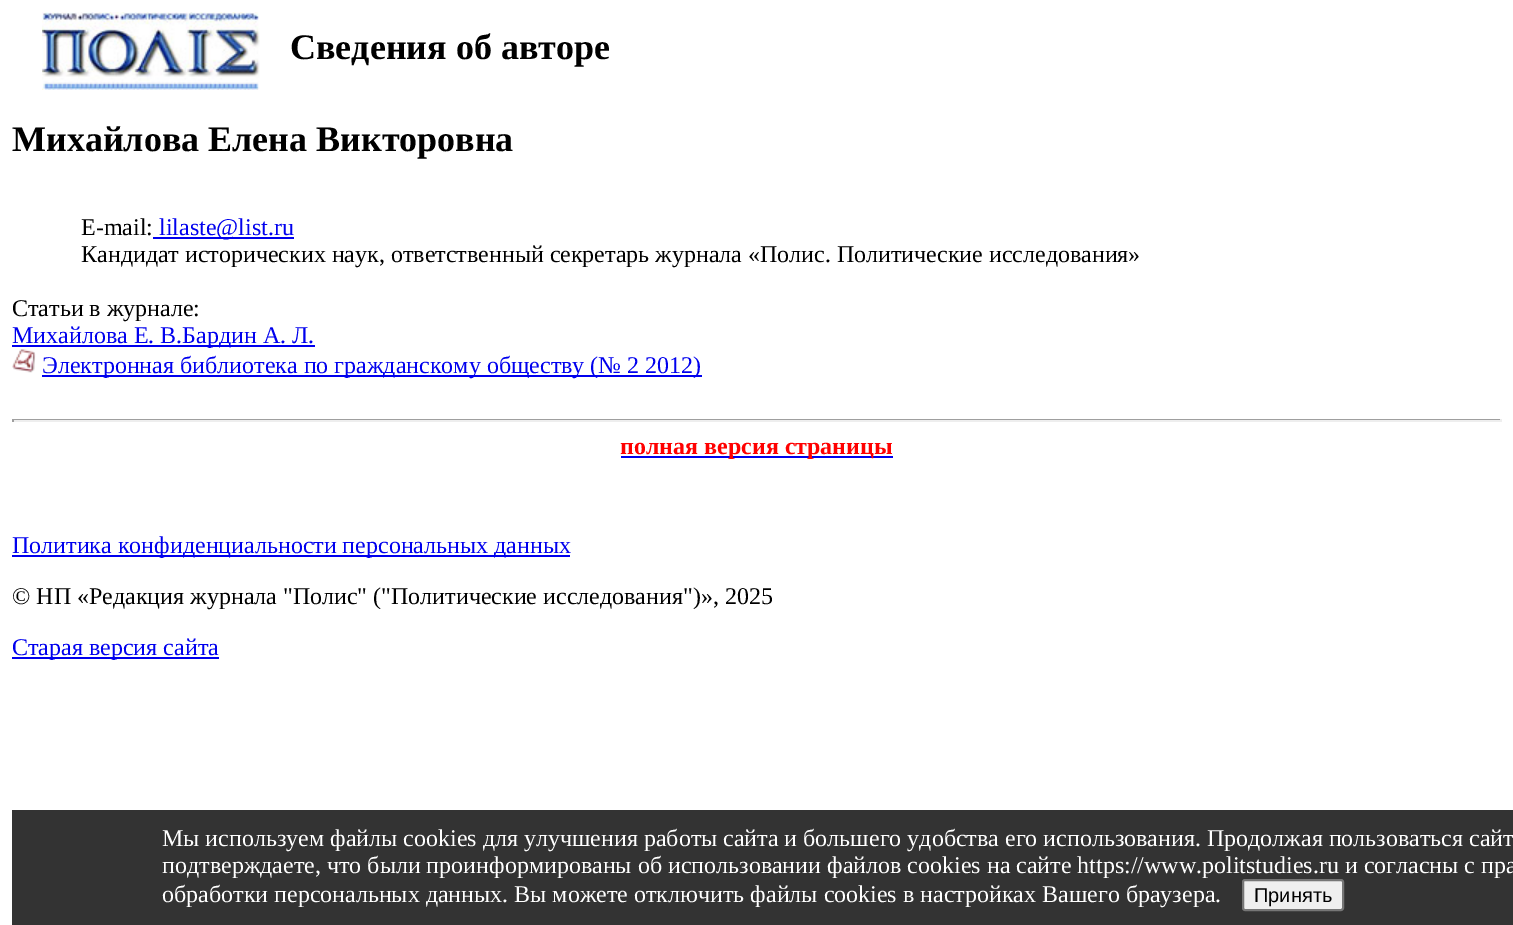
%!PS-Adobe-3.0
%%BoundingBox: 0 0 1513 925
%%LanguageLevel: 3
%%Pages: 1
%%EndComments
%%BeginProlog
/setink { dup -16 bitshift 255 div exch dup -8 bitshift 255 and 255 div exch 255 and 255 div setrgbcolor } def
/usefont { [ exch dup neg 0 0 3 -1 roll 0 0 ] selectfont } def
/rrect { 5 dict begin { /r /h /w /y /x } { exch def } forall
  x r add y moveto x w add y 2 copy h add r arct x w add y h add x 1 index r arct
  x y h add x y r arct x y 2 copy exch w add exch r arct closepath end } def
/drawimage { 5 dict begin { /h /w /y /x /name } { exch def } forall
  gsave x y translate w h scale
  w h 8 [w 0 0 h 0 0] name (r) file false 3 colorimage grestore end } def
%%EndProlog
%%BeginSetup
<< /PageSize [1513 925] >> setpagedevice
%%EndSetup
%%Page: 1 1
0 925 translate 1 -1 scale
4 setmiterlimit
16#FFFFFF setink
0 0 1513 925 rectfill
(img1.raw) 42 12 218 78 drawimage
/LiberationSerif-Bold 36 usefont
16#000000 setink
290 59 moveto (Сведения об авторе) show
12 151 moveto (Михайлова Елена Викторовна) show
/LiberationSerif-Regular 24 usefont
81 235 moveto (E-mail:) show
16#0000EE setink
153 237 141 2 rectfill
159 235 moveto (lilaste@list.ru) show
16#000000 setink
81 262 moveto (Кандидат исторических наук, ответственный секретарь журнала «Полис. Политические исследования») show
12 316 moveto (Статьи в журнале:) show
16#0000EE setink
12 345 303 2 rectfill
12 343 moveto (Михайлова Е. В.Бардин А. Л.) show
(img2.raw) 12 349 24 24 drawimage
42 375 660 2 rectfill
42 373 moveto (Электронная библиотека по гражданскому обществу \(№ 2 2012\)) show
[
    [12 419 1490 1 16#9F9F9F]
    [1500 419 2 3 16#EEEEEE]
    [12 420 1490 2 16#EEEEEE]
    [12 419 2 3 16#9F9F9F]
    [621 456 272 2 16#0000EE]
] { aload pop setink rectfill } forall
/LiberationSerif-Bold 24 usefont
16#FF0000 setink
620 454 moveto (полная версия страницы) show
16#0000EE setink
12 555 558 2 rectfill
/LiberationSerif-Regular 24 usefont
12 553 moveto (Политика конфиденциальности персональных данных) show
16#000000 setink
12 604 moveto (© НП «Редакция журнала "Полис" \("Политические исследования"\)», 2025) show
16#0000EE setink
12 657 207 2 rectfill
12 655 moveto (Cтарая версия сайта) show
16#333333 setink
12 810 1501 115 rectfill
16#FFFFFF setink
[
    [(Мы используем файлы cookies для улучшения работы сайта и большего удобства его использования. Продолжая пользоваться сайт) 162 846]
    [(подтверждаете, что были проинформированы об использовании файлов cookies на сайте https://www.politstudies.ru и согласны с пра) 162 873]
    [(обработки персональных данных. Вы можете отключить файлы cookies в настройках Вашего браузера.) 162 902]
] { aload pop moveto show } forall
16#EFEFEF setink
1243 880 100 30 2 rrect gsave fill grestore
16#767676 setink
2 setlinewidth
stroke
/LiberationSans-Regular 20 usefont
16#000000 setink
1254 902 moveto (Принять) show
showpage
%%EOF
